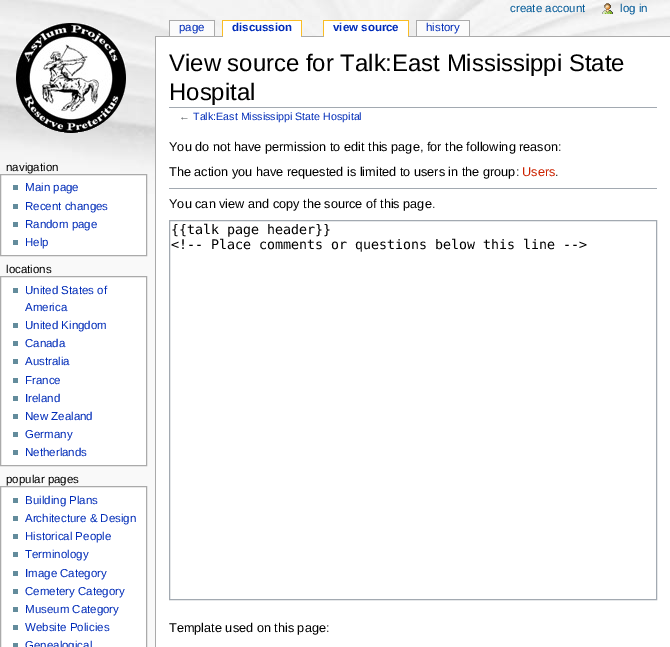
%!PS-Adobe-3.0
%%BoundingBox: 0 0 670 647
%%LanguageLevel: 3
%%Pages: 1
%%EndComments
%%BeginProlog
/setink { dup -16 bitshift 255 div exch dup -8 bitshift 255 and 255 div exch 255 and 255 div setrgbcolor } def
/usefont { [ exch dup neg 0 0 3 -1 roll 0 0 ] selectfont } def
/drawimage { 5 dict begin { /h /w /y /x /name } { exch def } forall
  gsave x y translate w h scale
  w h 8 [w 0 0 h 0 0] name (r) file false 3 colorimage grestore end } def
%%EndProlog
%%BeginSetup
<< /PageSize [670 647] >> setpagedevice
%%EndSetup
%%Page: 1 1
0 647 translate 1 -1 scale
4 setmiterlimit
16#F9F9F9 setink
0 0 670 647 rectfill
(img1.raw) 0 0 670 194 drawimage
/LiberationSans-Regular 11.5 usefont
16#005896 setink
510 12 moveto (create account) show
(img2.raw) 602 3 11 11 drawimage
620 12 moveto (log in) show
(img3.raw) 16 23 110 110 drawimage
16#FBFBFB setink
170 21 44 15 rectfill
16#002BB8 setink
179 31 moveto (page) show
[
    [169 20 46 1 16#AAAAAA]
    [214 20 1 16 16#AAAAAA]
    [169 20 1 16 16#AAAAAA]
    [155 36 515 1 16#AAAAAA]
    [223 21 78 16 16#FFFFFF]
] { aload pop setink rectfill } forall
/LiberationSans-Bold 11.5 usefont
16#002BB8 setink
232 31 moveto (discussion) show
[
    [222 20 80 1 16#FABD23]
    [301 20 1 16 16#FABD23]
    [222 20 1 16 16#FABD23]
    [324 21 84 16 16#FFFFFF]
] { aload pop setink rectfill } forall
16#002BB8 setink
333 31 moveto (view source) show
[
    [323 20 86 1 16#FABD23]
    [408 20 1 16 16#FABD23]
    [323 20 1 16 16#FABD23]
    [417 21 52 15 16#FBFBFB]
] { aload pop setink rectfill } forall
/LiberationSans-Regular 11.5 usefont
16#002BB8 setink
426 31 moveto (history) show
[
    [416 20 54 1 16#AAAAAA]
    [469 20 1 16 16#AAAAAA]
    [416 20 1 16 16#AAAAAA]
] { aload pop setink rectfill } forall
16#000000 setink
6 171 moveto (navigation) show
16#FFFFFF setink
0.5 174.5 moveto 146.5 174.5 lineto 146.5 255.5 lineto 0.5 255.5 lineto closepath gsave fill grestore
16#AAAAAA setink
stroke
16#638C9C setink
13 185 5 5 rectfill
16#002BB8 setink
25 191 moveto (Main page) show
16#638C9C setink
13 204 5 5 rectfill
16#002BB8 setink
25 210 moveto (Recent changes) show
16#638C9C setink
13 222 5 5 rectfill
16#002BB8 setink
25 228 moveto (Random page) show
16#638C9C setink
13 240 5 5 rectfill
16#002BB8 setink
25 246 moveto (Help) show
16#000000 setink
6 273 moveto (locations) show
16#FFFFFF setink
0.5 276.5 moveto 146.5 276.5 lineto 146.5 465.5 lineto 0.5 465.5 lineto closepath gsave fill grestore
16#AAAAAA setink
stroke
16#638C9C setink
13 288 5 5 rectfill
16#002BB8 setink
25 294 moveto (United States of) show
25 311 moveto (America) show
16#638C9C setink
13 323 5 5 rectfill
16#002BB8 setink
25 329 moveto (United Kingdom) show
16#638C9C setink
13 341 5 5 rectfill
16#002BB8 setink
25 347 moveto (Canada) show
16#638C9C setink
13 359 5 5 rectfill
16#002BB8 setink
25 365 moveto (Australia) show
16#638C9C setink
13 378 5 5 rectfill
16#002BB8 setink
25 384 moveto (France) show
16#638C9C setink
13 396 5 5 rectfill
16#002BB8 setink
25 402 moveto (Ireland) show
16#638C9C setink
13 414 5 5 rectfill
16#002BB8 setink
25 420 moveto (New Zealand) show
16#638C9C setink
13 432 5 5 rectfill
16#002BB8 setink
25 438 moveto (Germany) show
16#638C9C setink
13 450 5 5 rectfill
16#002BB8 setink
25 456 moveto (Netherlands) show
16#000000 setink
6 483 moveto (popular pages) show
16#FFFFFF setink
0.5 486.5 moveto 146.5 486.5 lineto 146.5 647.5 lineto 0.5 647.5 lineto closepath gsave fill grestore
16#AAAAAA setink
stroke
16#638C9C setink
13 498 5 5 rectfill
16#002BB8 setink
25 504 moveto (Building Plans) show
16#638C9C setink
13 516 5 5 rectfill
16#002BB8 setink
25 522 moveto (Architecture & Design) show
16#638C9C setink
13 534 5 5 rectfill
16#002BB8 setink
25 540 moveto (Historical People) show
16#638C9C setink
13 552 5 5 rectfill
16#002BB8 setink
25 558 moveto (Terminology) show
16#638C9C setink
13 571 5 5 rectfill
16#002BB8 setink
25 577 moveto (Image Category) show
16#638C9C setink
13 589 5 5 rectfill
16#002BB8 setink
25 595 moveto (Cemetery Category) show
16#638C9C setink
13 607 5 5 rectfill
16#002BB8 setink
25 613 moveto (Museum Category) show
16#638C9C setink
13 625 5 5 rectfill
16#002BB8 setink
25 631 moveto (Website Policies) show
16#638C9C setink
13 643 5 4 rectfill
16#002BB8 setink
25 649 moveto (Genealogical) show
[
    [156 37 514 610 16#FFFFFF]
    [155 36 1 611 16#AAAAAA]
    [169 107 488 1 16#A2A9B1]
] { aload pop setink rectfill } forall
/LiberationSans-Regular 23.9 usefont
16#000000 setink
169 71 moveto (View source for Talk:East Mississippi State) show
169 100 moveto (Hospital) show
/LiberationSans-Regular 10.7 usefont
16#54595D setink
179 120 moveto (←) show
16#002BB8 setink
193 120 moveto (Talk:East Mississippi State Hospital) show
/LiberationSans-Regular 12.7 usefont
16#000000 setink
169 151 moveto (You do not have permission to edit this page, for the following reason:) show
169 176 moveto (The action you have requested is limited to users in the group:) show
16#CC2200 setink
522 176 moveto (Users) show
16#000000 setink
555 176 moveto (.) show
16#A2A9B1 setink
169 188 488 1 rectfill
16#000000 setink
169 208 moveto (You can view and copy the source of this page.) show
16#A2A9B1 setink
169.5 220.5 487 379 rectstroke
/DejaVuSansMono-Regular 13.3 usefont
16#000000 setink
171 234 moveto ({{talk page header}}) show
171 249 moveto (<!-- Place comments or questions below this line -->) show
/LiberationSans-Regular 12.7 usefont
169 632 moveto (Template used on this page:) show
showpage
%%EOF
